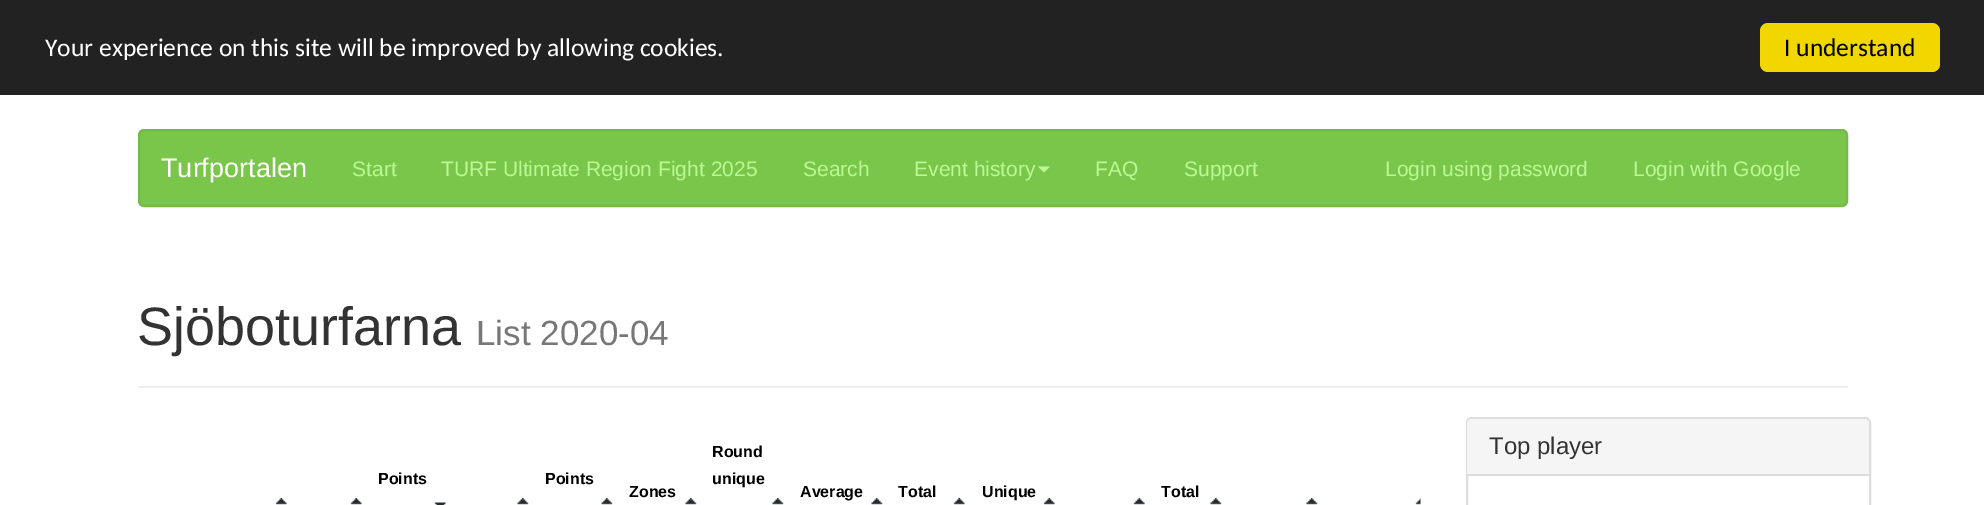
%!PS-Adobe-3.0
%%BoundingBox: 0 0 1984 505
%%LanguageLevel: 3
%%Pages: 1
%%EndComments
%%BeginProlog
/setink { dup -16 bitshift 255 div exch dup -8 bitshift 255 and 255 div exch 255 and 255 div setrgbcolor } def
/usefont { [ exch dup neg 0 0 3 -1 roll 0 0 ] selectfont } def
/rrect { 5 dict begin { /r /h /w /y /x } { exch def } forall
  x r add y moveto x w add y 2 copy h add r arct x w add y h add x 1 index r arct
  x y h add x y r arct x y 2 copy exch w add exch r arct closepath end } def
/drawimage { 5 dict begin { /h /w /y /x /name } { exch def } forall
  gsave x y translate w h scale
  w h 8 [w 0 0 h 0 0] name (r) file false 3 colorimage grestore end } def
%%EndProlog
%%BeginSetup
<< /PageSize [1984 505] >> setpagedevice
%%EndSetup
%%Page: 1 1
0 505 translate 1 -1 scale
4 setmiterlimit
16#FFFFFF setink
0 0 1984 505 rectfill
16#222222 setink
0 0 1984 95 rectfill
/Carlito-Regular 25.5 usefont
16#FFFFFF setink
45 56 moveto (Your experience on this site will be improved by allowing cookies.) show
16#F1D600 setink
1760 23 180 49 8 rrect fill
16#000000 setink
1784 56 moveto (I understand) show
16#79C64A setink
139 130 1708 76 5 rrect gsave fill grestore
16#75B94B setink
2 setlinewidth
stroke
/LiberationSans-Regular 27 usefont
16#FFFFFF setink
161 177 moveto (Turfportalen) show
/LiberationSans-Regular 21 usefont
16#BBF995 setink
[
    [(Start) 352 176]
    [(TURF Ultimate Region Fight 2025) 441 176]
    [(Search) 803 176]
    [(Event history) 914 176]
] { aload pop moveto show } forall
1038 166.5 moveto 1050 166.5 lineto 1044 172.5 lineto closepath fill
[
    [(FAQ) 1095 176]
    [(Support) 1184 176]
    [(Login using password) 1385 176]
    [(Login with Google) 1633 176]
] { aload pop moveto show } forall
16#EEEEEE setink
138 386 1710 2 rectfill
/LiberationSans-Regular 54 usefont
16#333333 setink
137 345 moveto (Sjöboturfarna) show
/LiberationSans-Regular 35 usefont
16#777777 setink
476 345 moveto (List 2020-04) show
(img1.raw) 434 502 12 3 drawimage
/LiberationSans-Bold 16 usefont
16#000000 setink
378 484 moveto (Points) show
(img2.raw) 601 498 12 7 drawimage
545 484 moveto (Points) show
(img3.raw) 772 498 12 7 drawimage
712 457 moveto (Round) show
712 484 moveto (unique) show
(img4.raw) 275 498 12 7 drawimage
(img4.raw) 350 498 12 7 drawimage
(img3.raw) 517 498 12 7 drawimage
(img3.raw) 685 498 12 7 drawimage
629 497 moveto (Zones) show
(img3.raw) 871 498 12 7 drawimage
800 497 moveto (Average) show
(img4.raw) 953 498 12 7 drawimage
898 497 moveto (Total) show
(img4.raw) 1043 498 12 7 drawimage
982 497 moveto (Unique) show
(img5.raw) 1133 498 12 7 drawimage
(img2.raw) 1210 498 12 7 drawimage
1161 497 moveto (Total) show
(img3.raw) 1306 498 12 7 drawimage
(img6.raw) 1415 498 6 7 drawimage
16#DDDDDD setink
1467 418 403 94 5 rrect stroke
16#F5F5F5 setink
1472 419 moveto 1864 419 lineto 1867 419 1869 421 1869 424 curveto 1869 476 lineto 1467 476 lineto 1467 424 lineto 1467 421 1469 419 1472 419 curveto closepath fill
16#DDDDDD setink
1467 474 402 2 rectfill
/LiberationSans-Regular 24 usefont
16#333333 setink
1489 454 moveto (Top player) show
showpage
%%EOF
